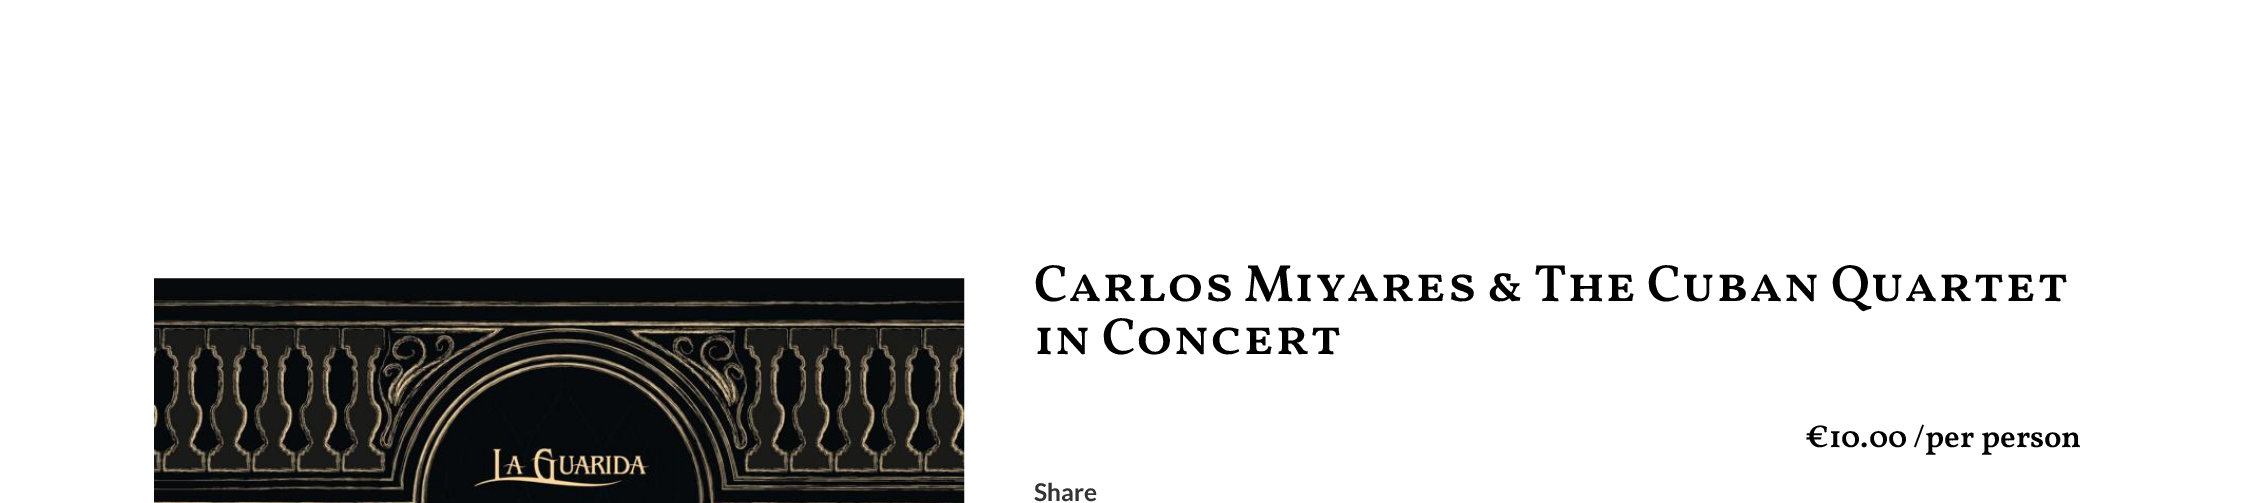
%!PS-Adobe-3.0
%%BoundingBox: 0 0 2266 503
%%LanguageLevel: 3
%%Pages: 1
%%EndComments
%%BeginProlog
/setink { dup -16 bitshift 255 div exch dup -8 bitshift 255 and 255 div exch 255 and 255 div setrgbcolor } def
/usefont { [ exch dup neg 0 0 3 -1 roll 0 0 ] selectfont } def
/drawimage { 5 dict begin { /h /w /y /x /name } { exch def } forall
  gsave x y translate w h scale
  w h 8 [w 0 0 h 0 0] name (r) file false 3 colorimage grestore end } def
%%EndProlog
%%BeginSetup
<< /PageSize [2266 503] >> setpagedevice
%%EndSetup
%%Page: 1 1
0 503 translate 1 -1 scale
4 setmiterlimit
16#FFFFFF setink
0 0 2266 503 rectfill
(img1.raw) 154 278 811 225 drawimage
/VollkornSC-SemiBold 52.5 usefont
16#000000 setink
1034 301 moveto (Carlos Miyares & The Cuban Quartet) show
1034 354 moveto (in Concert) show
/Vollkorn-SemiBold 31.5 usefont
1805 447 moveto (€10.00 /per person) show
/Lato-Bold 24.5 usefont
16#333333 setink
1034 501 moveto (Share) show
showpage
%%EOF
